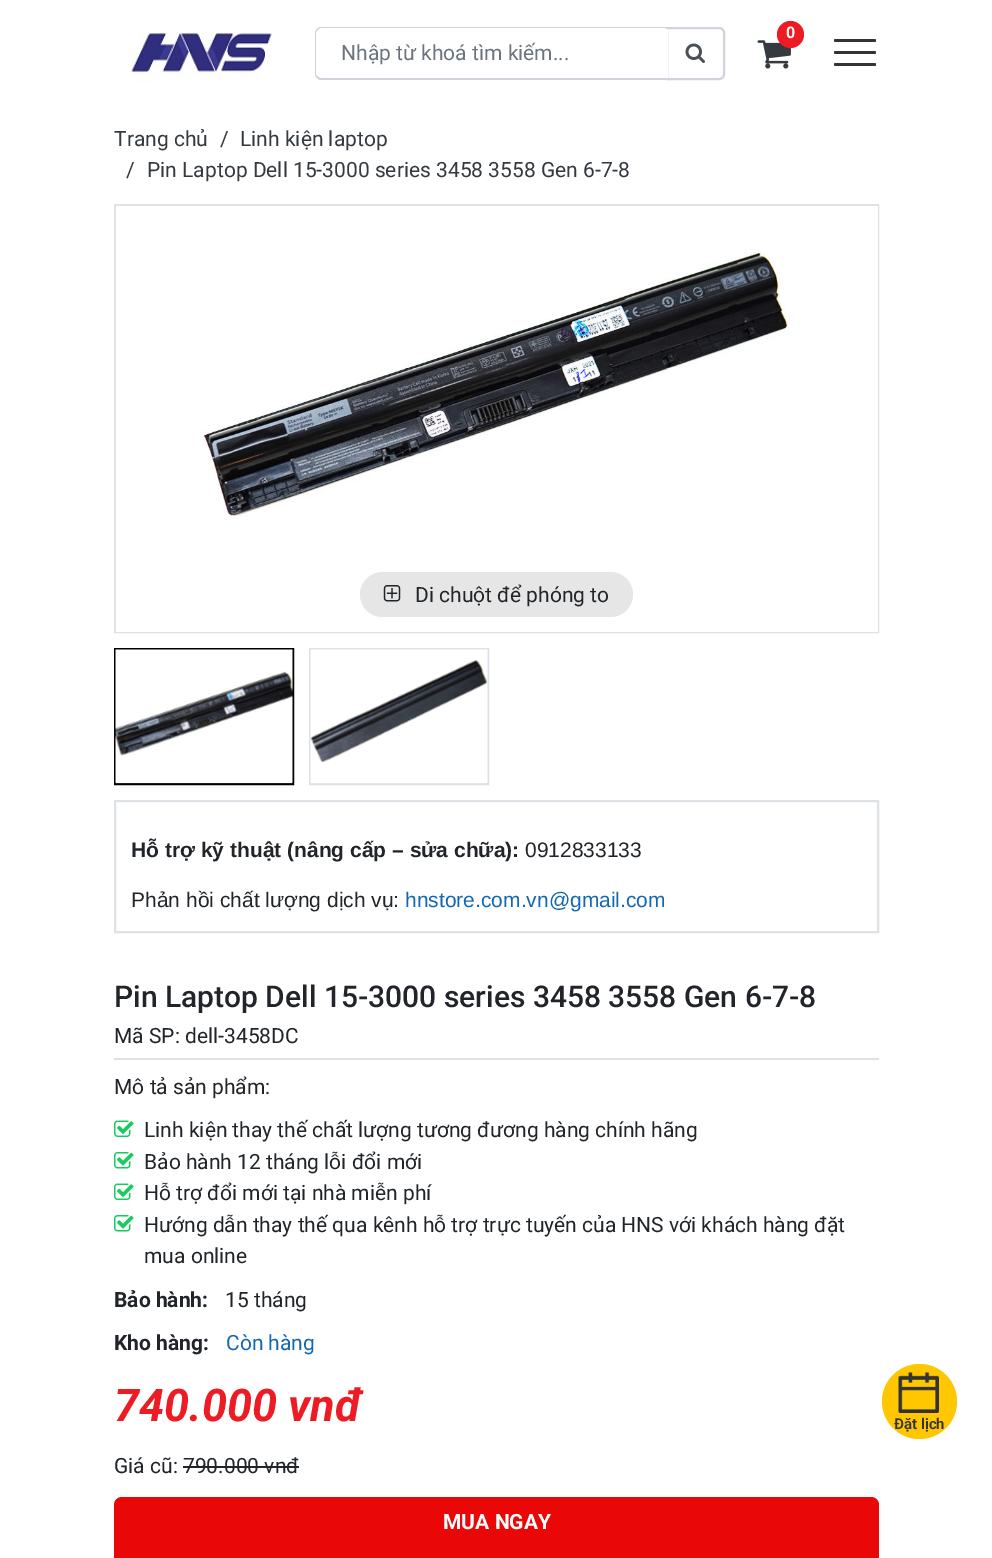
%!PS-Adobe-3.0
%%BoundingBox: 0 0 992 1558
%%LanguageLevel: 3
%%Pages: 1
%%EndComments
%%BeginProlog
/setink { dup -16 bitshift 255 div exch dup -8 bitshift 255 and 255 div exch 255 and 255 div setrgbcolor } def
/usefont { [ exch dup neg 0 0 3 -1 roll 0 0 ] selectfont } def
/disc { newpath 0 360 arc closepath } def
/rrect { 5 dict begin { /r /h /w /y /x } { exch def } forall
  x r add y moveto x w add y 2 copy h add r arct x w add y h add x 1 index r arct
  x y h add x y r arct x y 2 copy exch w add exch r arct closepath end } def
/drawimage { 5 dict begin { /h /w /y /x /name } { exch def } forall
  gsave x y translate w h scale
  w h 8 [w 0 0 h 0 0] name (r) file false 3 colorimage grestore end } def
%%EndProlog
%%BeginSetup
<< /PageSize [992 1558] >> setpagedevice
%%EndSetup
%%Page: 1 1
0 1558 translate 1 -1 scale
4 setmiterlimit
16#FFFFFF setink
0 0 992 1558 rectfill
(img1.raw) 131 32 141 52 drawimage
16#CED4DA setink
2 setlinewidth
667 28 moveto 719 28 lineto 722 28 724 30 724 33 curveto 724 74 lineto 724 77 722 79 719 79 curveto 667 79 lineto closepath stroke
16#FFFFFF setink
322 29 moveto 668 29 lineto 668 78 lineto 322 78 lineto 319 78 317 76 317 73 curveto 317 34 lineto 317 31 319 29 322 29 curveto closepath fill
16#CED4DA setink
321 27 moveto 668 27 lineto 668 80 lineto 321 80 lineto 318 80 315 77 315 74 curveto 315 33 lineto 315 30 318 27 321 27 curveto closepath 321 28 moveto 668 28 lineto 668 78 lineto 321 78 lineto 319 78 316 76 316 74 curveto 316 33 lineto 316 31 319 28 321 28 curveto closepath eofill
/Roboto-Regular 21 usefont
16#6C757D setink
341 60 moveto (Nhập từ khoá tìm kiếm...) show
(img2.raw) 685 43 20 20 drawimage
(img3.raw) 757 40 34 29 drawimage
16#ED1C24 setink
790.5 34.5 13.5 disc fill
/Roboto-Bold 16 usefont
16#FFFFFF setink
786 38 moveto (0) show
16#333333 setink
834 39 42 3 1.5 rrect fill
834 51 42 3 1.5 rrect fill
834 63 42 3 1.5 rrect fill
/Roboto-Regular 21 usefont
16#343A40 setink
[
    [(Trang chủ) 114 146]
    [(/) 220 146]
    [(Linh kiện laptop) 240 146]
    [(/) 126 177]
    [(Pin Laptop Dell 15-3000 series 3458 3558 Gen 6-7-8) 147 177]
] { aload pop moveto show } forall
16#DEE2E6 setink
115 205 763 427 rectstroke
16#FFFFFF setink
116 206 762 426 rectfill
(img4.raw) 202 252 588 265 drawimage
16#E6E6E6 setink
360 572 273 45 22.5 rrect fill
(img5.raw) 383 585 18 17 drawimage
16#212529 setink
415 602 moveto (Di chuột để phóng to) show
16#000000 setink
115 649 178 135 rectstroke
(img6.raw) 115 649 178 135 drawimage
16#DEE2E6 setink
310 649 178 135 rectstroke
(img7.raw) 310 649 178 135 drawimage
115 801 763 131 rectstroke
/LiberationSans-Bold 21 usefont
16#212529 setink
131 857 moveto (Hỗ trợ kỹ thuật \(nâng cấp – sửa chữa\):) show
/LiberationSans-Regular 21 usefont
525 857 moveto (0912833133) show
131 907 moveto (Phản hồi chất lượng dịch vụ:) show
16#1268B3 setink
405 907 moveto (hnstore.com.vn@gmail.com) show
/Roboto-Medium 30 usefont
16#212529 setink
114 1007 moveto (Pin Laptop Dell 15-3000 series 3458 3558 Gen 6-7-8) show
16#DEE2E6 setink
114 1058 765 2 rectfill
/Roboto-Regular 21 usefont
16#212529 setink
114 1043 moveto (Mã SP: dell-3458DC) show
114 1094 moveto (Mô tả sản phẩm:) show
(img8.raw) 114 1120 20 17 drawimage
144 1137 moveto (Linh kiện thay thế chất lượng tương đương hàng chính hãng) show
(img9.raw) 114 1152 20 17 drawimage
144 1169 moveto (Bảo hành 12 tháng lỗi đổi mới) show
(img8.raw) 114 1183 20 17 drawimage
144 1200 moveto (Hỗ trợ đổi mới tại nhà miễn phí) show
(img9.raw) 114 1215 20 17 drawimage
144 1232 moveto (Hướng dẫn thay thế qua kênh hỗ trợ trực tuyến của HNS với khách hàng đặt) show
144 1263 moveto (mua online) show
/Roboto-Bold 21 usefont
114 1307 moveto (Bảo hành:) show
/Roboto-Regular 21 usefont
225 1307 moveto (15 tháng) show
/Roboto-Bold 21 usefont
114 1350 moveto (Kho hàng:) show
/Roboto-Regular 21 usefont
16#1268B3 setink
226 1350 moveto (Còn hàng) show
/Roboto-BoldItalic 45 usefont
16#ED1C24 setink
114 1421 moveto (740.000 vnđ) show
/Roboto-Regular 21 usefont
16#212529 setink
114 1473 moveto (Giá cũ: 790.000 vnđ) show
183 1466 116 2 rectfill
16#E90707 setink
114 1497 765 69 8 rrect fill
/Roboto-Bold 21 usefont
16#FFFFFF setink
443 1529 moveto (MUA NGAY) show
16#FFC700 setink
919.5 1401.5 37.5 disc fill
(img10.raw) 898 1372 41 41 drawimage
/Roboto-SemiBold 15 usefont
16#333333 setink
894 1429 moveto (Đặt lịch) show
showpage
%%EOF
